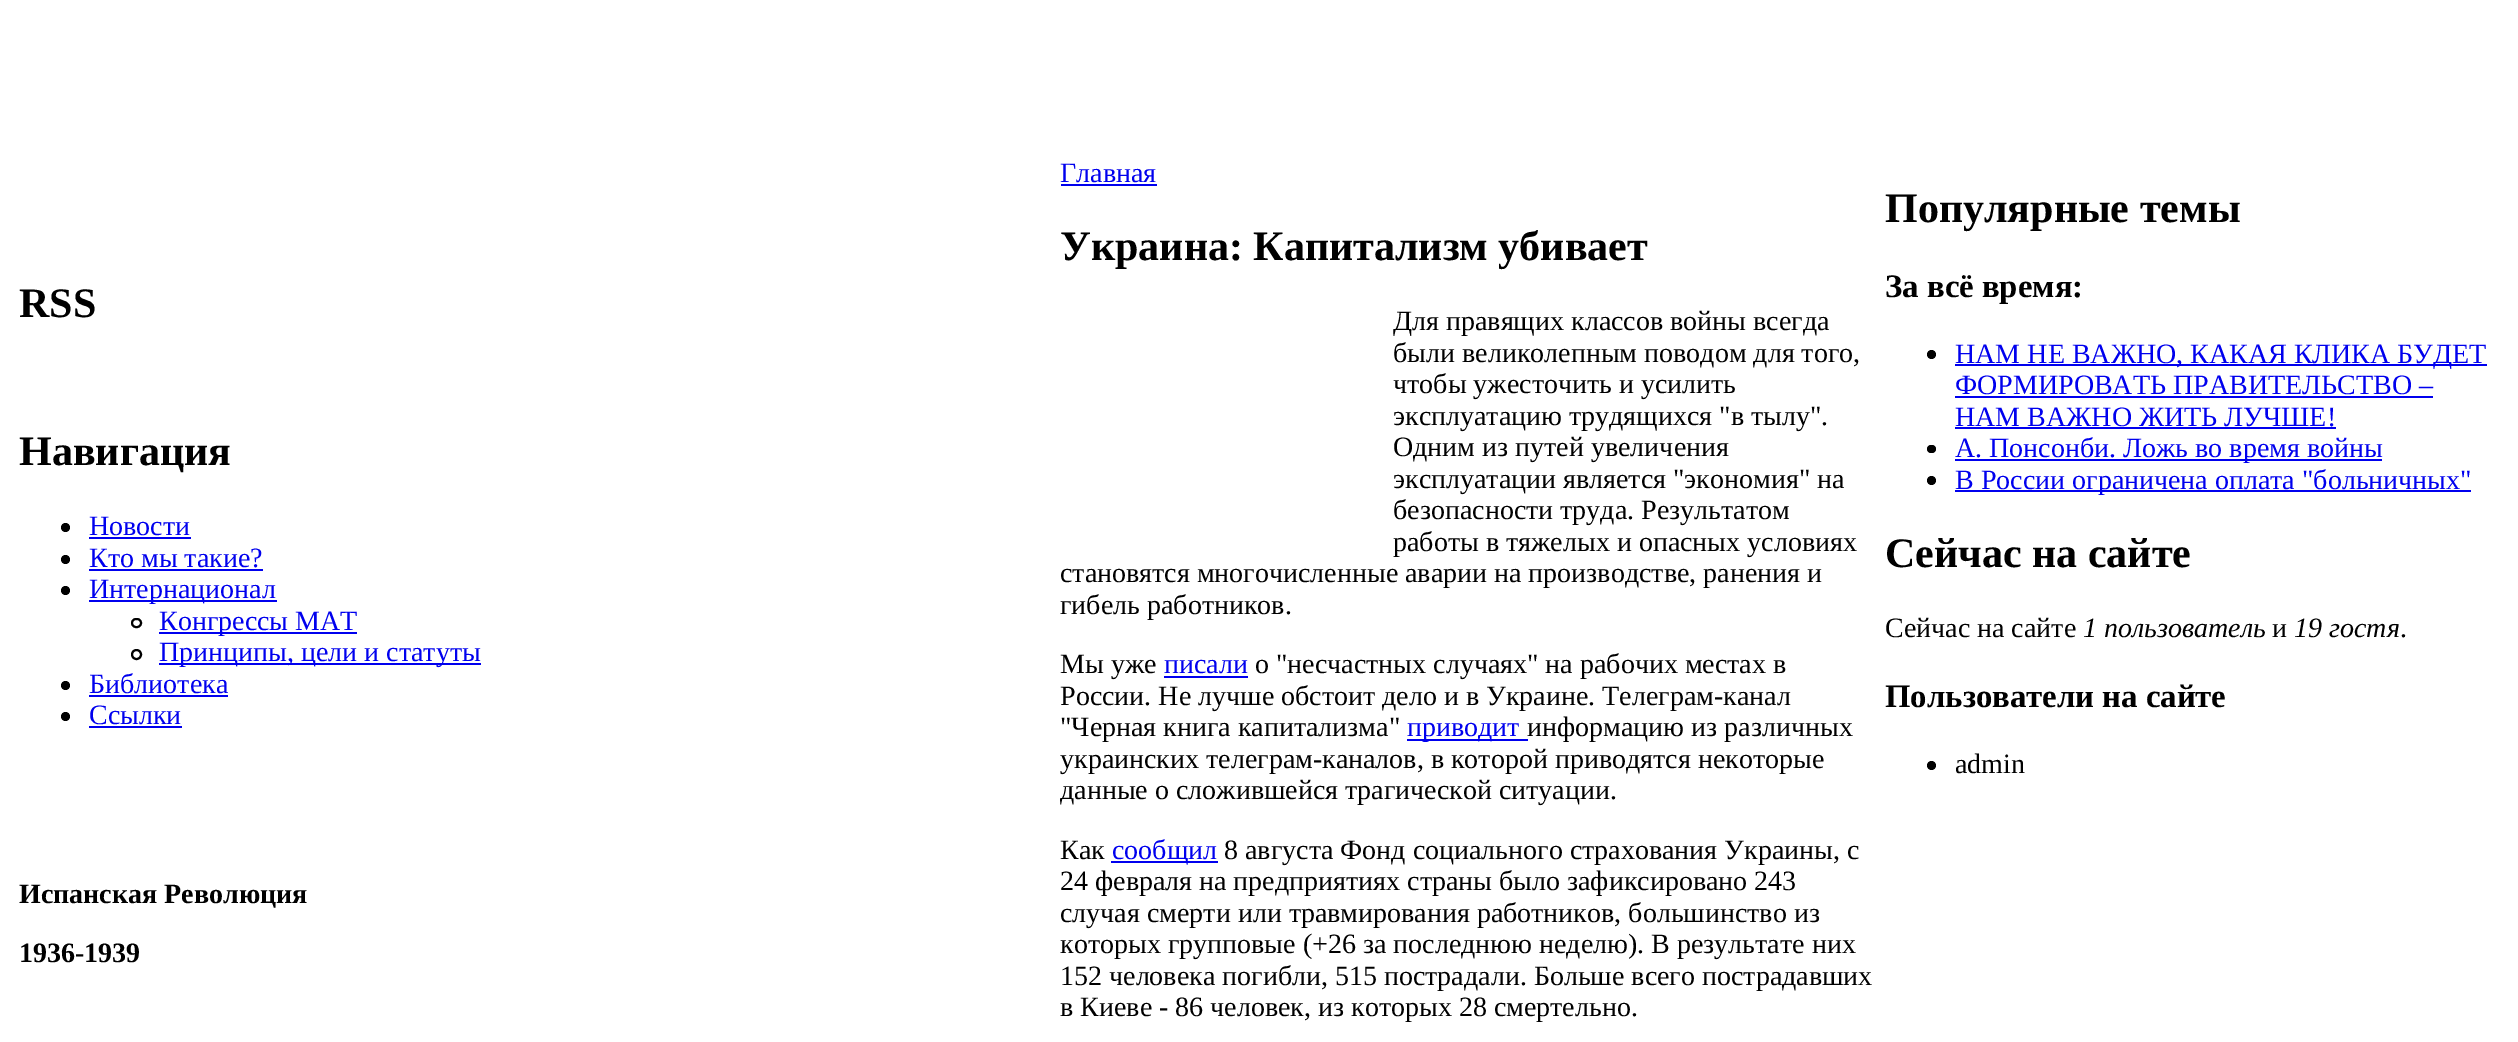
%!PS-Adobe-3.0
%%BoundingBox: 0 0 2518 1042
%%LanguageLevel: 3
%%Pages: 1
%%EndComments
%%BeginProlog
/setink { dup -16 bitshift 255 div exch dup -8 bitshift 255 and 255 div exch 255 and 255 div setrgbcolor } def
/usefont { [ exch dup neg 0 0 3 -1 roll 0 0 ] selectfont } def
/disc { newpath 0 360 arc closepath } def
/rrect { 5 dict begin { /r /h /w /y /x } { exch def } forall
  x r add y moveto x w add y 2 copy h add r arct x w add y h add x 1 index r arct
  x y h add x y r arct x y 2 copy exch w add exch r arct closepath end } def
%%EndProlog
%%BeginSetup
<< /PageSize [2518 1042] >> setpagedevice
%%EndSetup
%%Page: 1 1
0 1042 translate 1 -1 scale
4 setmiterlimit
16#FFFFFF setink
0 0 2518 1042 rectfill
/LiberationSerif-Bold 42 usefont
16#000000 setink
19 317 moveto (RSS) show
19 465 moveto (Навигация) show
65.5 527.5 4.5 disc fill
/LiberationSerif-Regular 28 usefont
16#0000EE setink
89 535 moveto (Новости) show
89 537 102 2 rectfill
16#000000 setink
65.5 559.5 4.5 disc fill
16#0000EE setink
89 567 moveto (Кто мы такие?) show
89 569 174 2 rectfill
16#000000 setink
65.5 590.5 4.5 disc fill
16#0000EE setink
89 600 188 2 rectfill
89 598 moveto (Интернационал) show
16#000000 setink
2 setlinewidth
132 619 9 8 4 rrect stroke
16#0000EE setink
159 632 198 2 rectfill
159 630 moveto (Конгрессы МАТ) show
16#000000 setink
136.5 654.5 4.5 disc stroke
16#0000EE setink
159 663 322 2 rectfill
159 661 moveto (Принципы, цели и статуты) show
16#000000 setink
65.5 685.5 4.5 disc fill
16#0000EE setink
89 693 moveto (Библиотека) show
89 695 139 2 rectfill
16#000000 setink
65.5 716.5 4.5 disc fill
16#0000EE setink
89 724 moveto (Ссылки) show
89 726 93 2 rectfill
/LiberationSerif-Bold 28 usefont
16#000000 setink
19 903 moveto (Испанская Революция) show
19 962 moveto (1936-1939) show
/LiberationSerif-Regular 28 usefont
16#0000EE setink
1060 182 moveto (Главная) show
1061 184 96 2 rectfill
/LiberationSerif-Bold 42 usefont
16#000000 setink
1060 260 moveto (Украина: Капитализм убивает) show
/LiberationSerif-Regular 28 usefont
[
    [(Для правящих классов войны всегда) 1393 330]
    [(были великолепным поводом для того,) 1393 362]
    [(чтобы ужесточить и усилить) 1393 393]
    [(эксплуатацию трудящихся "в тылу".) 1393 425]
    [(Одним из путей увеличения) 1393 456]
    [(эксплуатации является "экономия" на) 1393 488]
    [(безопасности труда. Результатом) 1393 519]
    [(работы в тяжелых и опасных условиях) 1393 551]
    [(становятся многочисленные аварии на производстве, ранения и) 1060 582]
    [(гибель работников.) 1060 614]
    [(Мы уже) 1060 673]
] { aload pop moveto show } forall
16#0000EE setink
1164 673 moveto (писали) show
1164 676 84 2 rectfill
16#000000 setink
[
    [(о "несчастных случаях" на рабочих местах в) 1255 673]
    [(России. Не лучше обстоит дело и в Украине. Телеграм-канал) 1060 705]
    [("Черная книга капитализма") 1060 736]
] { aload pop moveto show } forall
16#0000EE setink
1407 739 121 2 rectfill
1407 736 moveto (приводит) show
16#000000 setink
[
    [(информацию из различных) 1527 736]
    [(украинских телеграм-каналов, в которой приводятся некоторые) 1060 768]
    [(данные о сложившейся трагической ситуации.) 1060 799]
    [(Как) 1060 859]
] { aload pop moveto show } forall
16#0000EE setink
1111 861 107 2 rectfill
1112 859 moveto (сообщил) show
16#000000 setink
[
    [(8 августа Фонд социального страхования Украины, с) 1224 859]
    [(24 февраля на предприятиях страны было зафиксировано 243) 1060 890]
    [(случая смерти или травмирования работников, большинство из) 1060 922]
    [(которых групповые \(+26 за последнюю неделю\). В результате них) 1060 953]
    [(152 человека погибли, 515 пострадали. Больше всего пострадавших) 1060 985]
    [(в Киеве - 86 человек, из которых 28 смертельно.) 1060 1016]
] { aload pop moveto show } forall
/LiberationSerif-Bold 42 usefont
1885 222 moveto (Популярные темы) show
/LiberationSerif-Bold 32.75 usefont
1885 297 moveto (За всё время:) show
1931.5 354.5 4.5 disc fill
16#0000EE setink
1955 364 532 2 rectfill
/LiberationSerif-Regular 28 usefont
1955 363 moveto (НАМ НЕ ВАЖНО, КАКАЯ КЛИКА БУДЕТ) show
1955 394 moveto (ФОРМИРОВАТЬ ПРАВИТЕЛЬСТВО –) show
1955 396 478 2 rectfill
1955 426 moveto (НАМ ВАЖНО ЖИТЬ ЛУЧШЕ!) show
1955 427 381 2 rectfill
16#000000 setink
1927 445 9 8 4 rrect fill
16#0000EE setink
1955 459 427 2 rectfill
1955 457 moveto (А. Понсонби. Ложь во время войны) show
16#000000 setink
1931.5 480.5 4.5 disc fill
16#0000EE setink
1955 490 516 2 rectfill
1955 489 moveto (В России ограничена оплата "больничных") show
/LiberationSerif-Bold 42 usefont
16#000000 setink
1885 567 moveto (Сейчас на сайте) show
/LiberationSerif-Regular 28 usefont
1885 637 moveto (Сейчас на сайте) show
/LiberationSerif-Italic 28 usefont
2083 637 moveto (1 пользователь) show
/LiberationSerif-Regular 28 usefont
2272 637 moveto (и) show
/LiberationSerif-Italic 28 usefont
2294 637 moveto (19 гостя) show
/LiberationSerif-Regular 28 usefont
2400 637 moveto (.) show
/LiberationSerif-Bold 32.75 usefont
1885 707 moveto (Пользователи на сайте) show
1931.5 765.5 4.5 disc fill
/LiberationSerif-Regular 28 usefont
1955 773 moveto (admin) show
showpage
%%EOF
